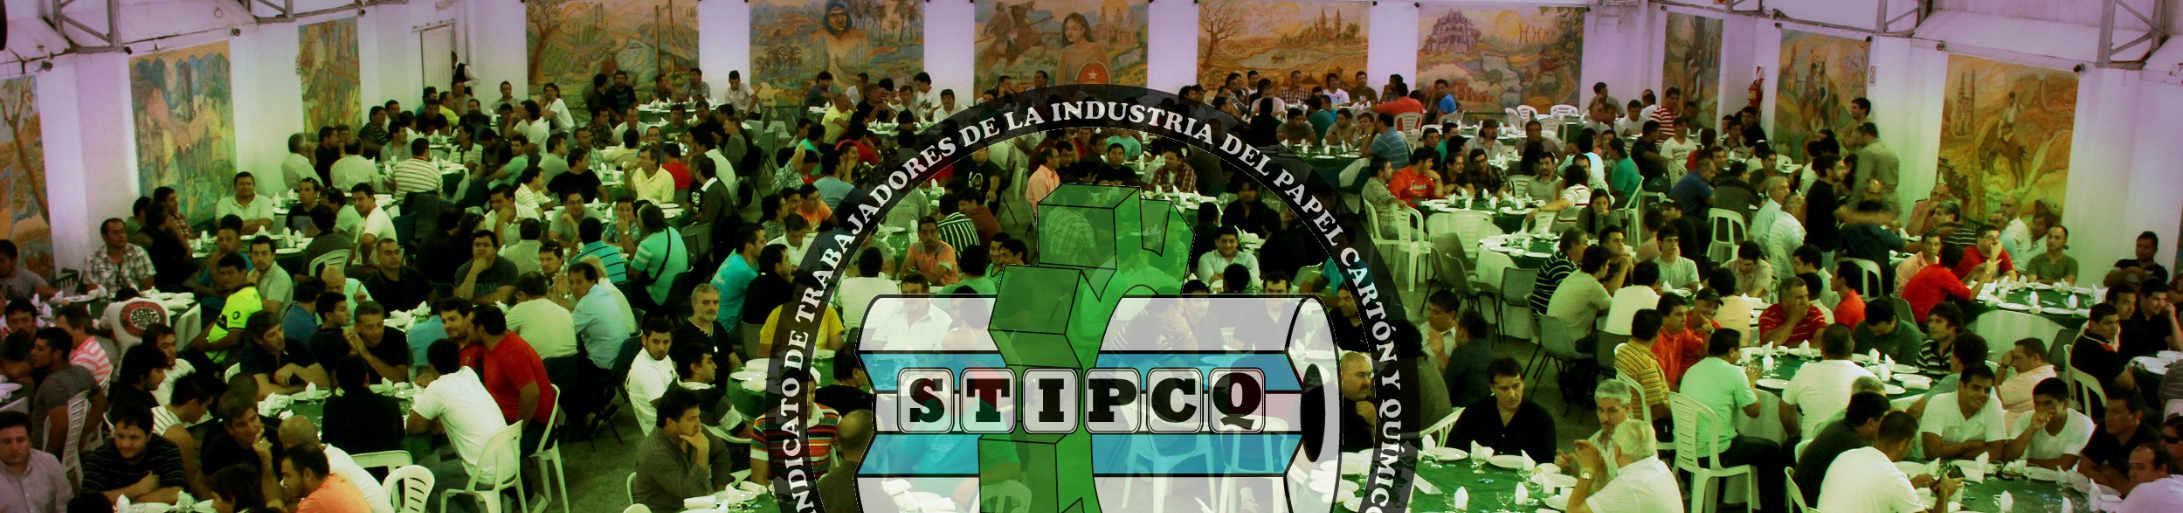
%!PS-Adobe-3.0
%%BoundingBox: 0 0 2183 513
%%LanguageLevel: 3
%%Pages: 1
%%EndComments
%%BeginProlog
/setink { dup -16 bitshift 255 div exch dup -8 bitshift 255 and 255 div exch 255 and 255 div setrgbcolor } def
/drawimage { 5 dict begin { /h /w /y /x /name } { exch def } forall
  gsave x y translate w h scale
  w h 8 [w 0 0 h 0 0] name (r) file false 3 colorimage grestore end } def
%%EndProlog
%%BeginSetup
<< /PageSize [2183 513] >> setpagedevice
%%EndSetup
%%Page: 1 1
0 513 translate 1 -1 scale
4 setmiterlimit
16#FFFFFF setink
0 0 2183 513 rectfill
(img1.raw) 0 0 2183 513 drawimage
showpage
%%EOF
